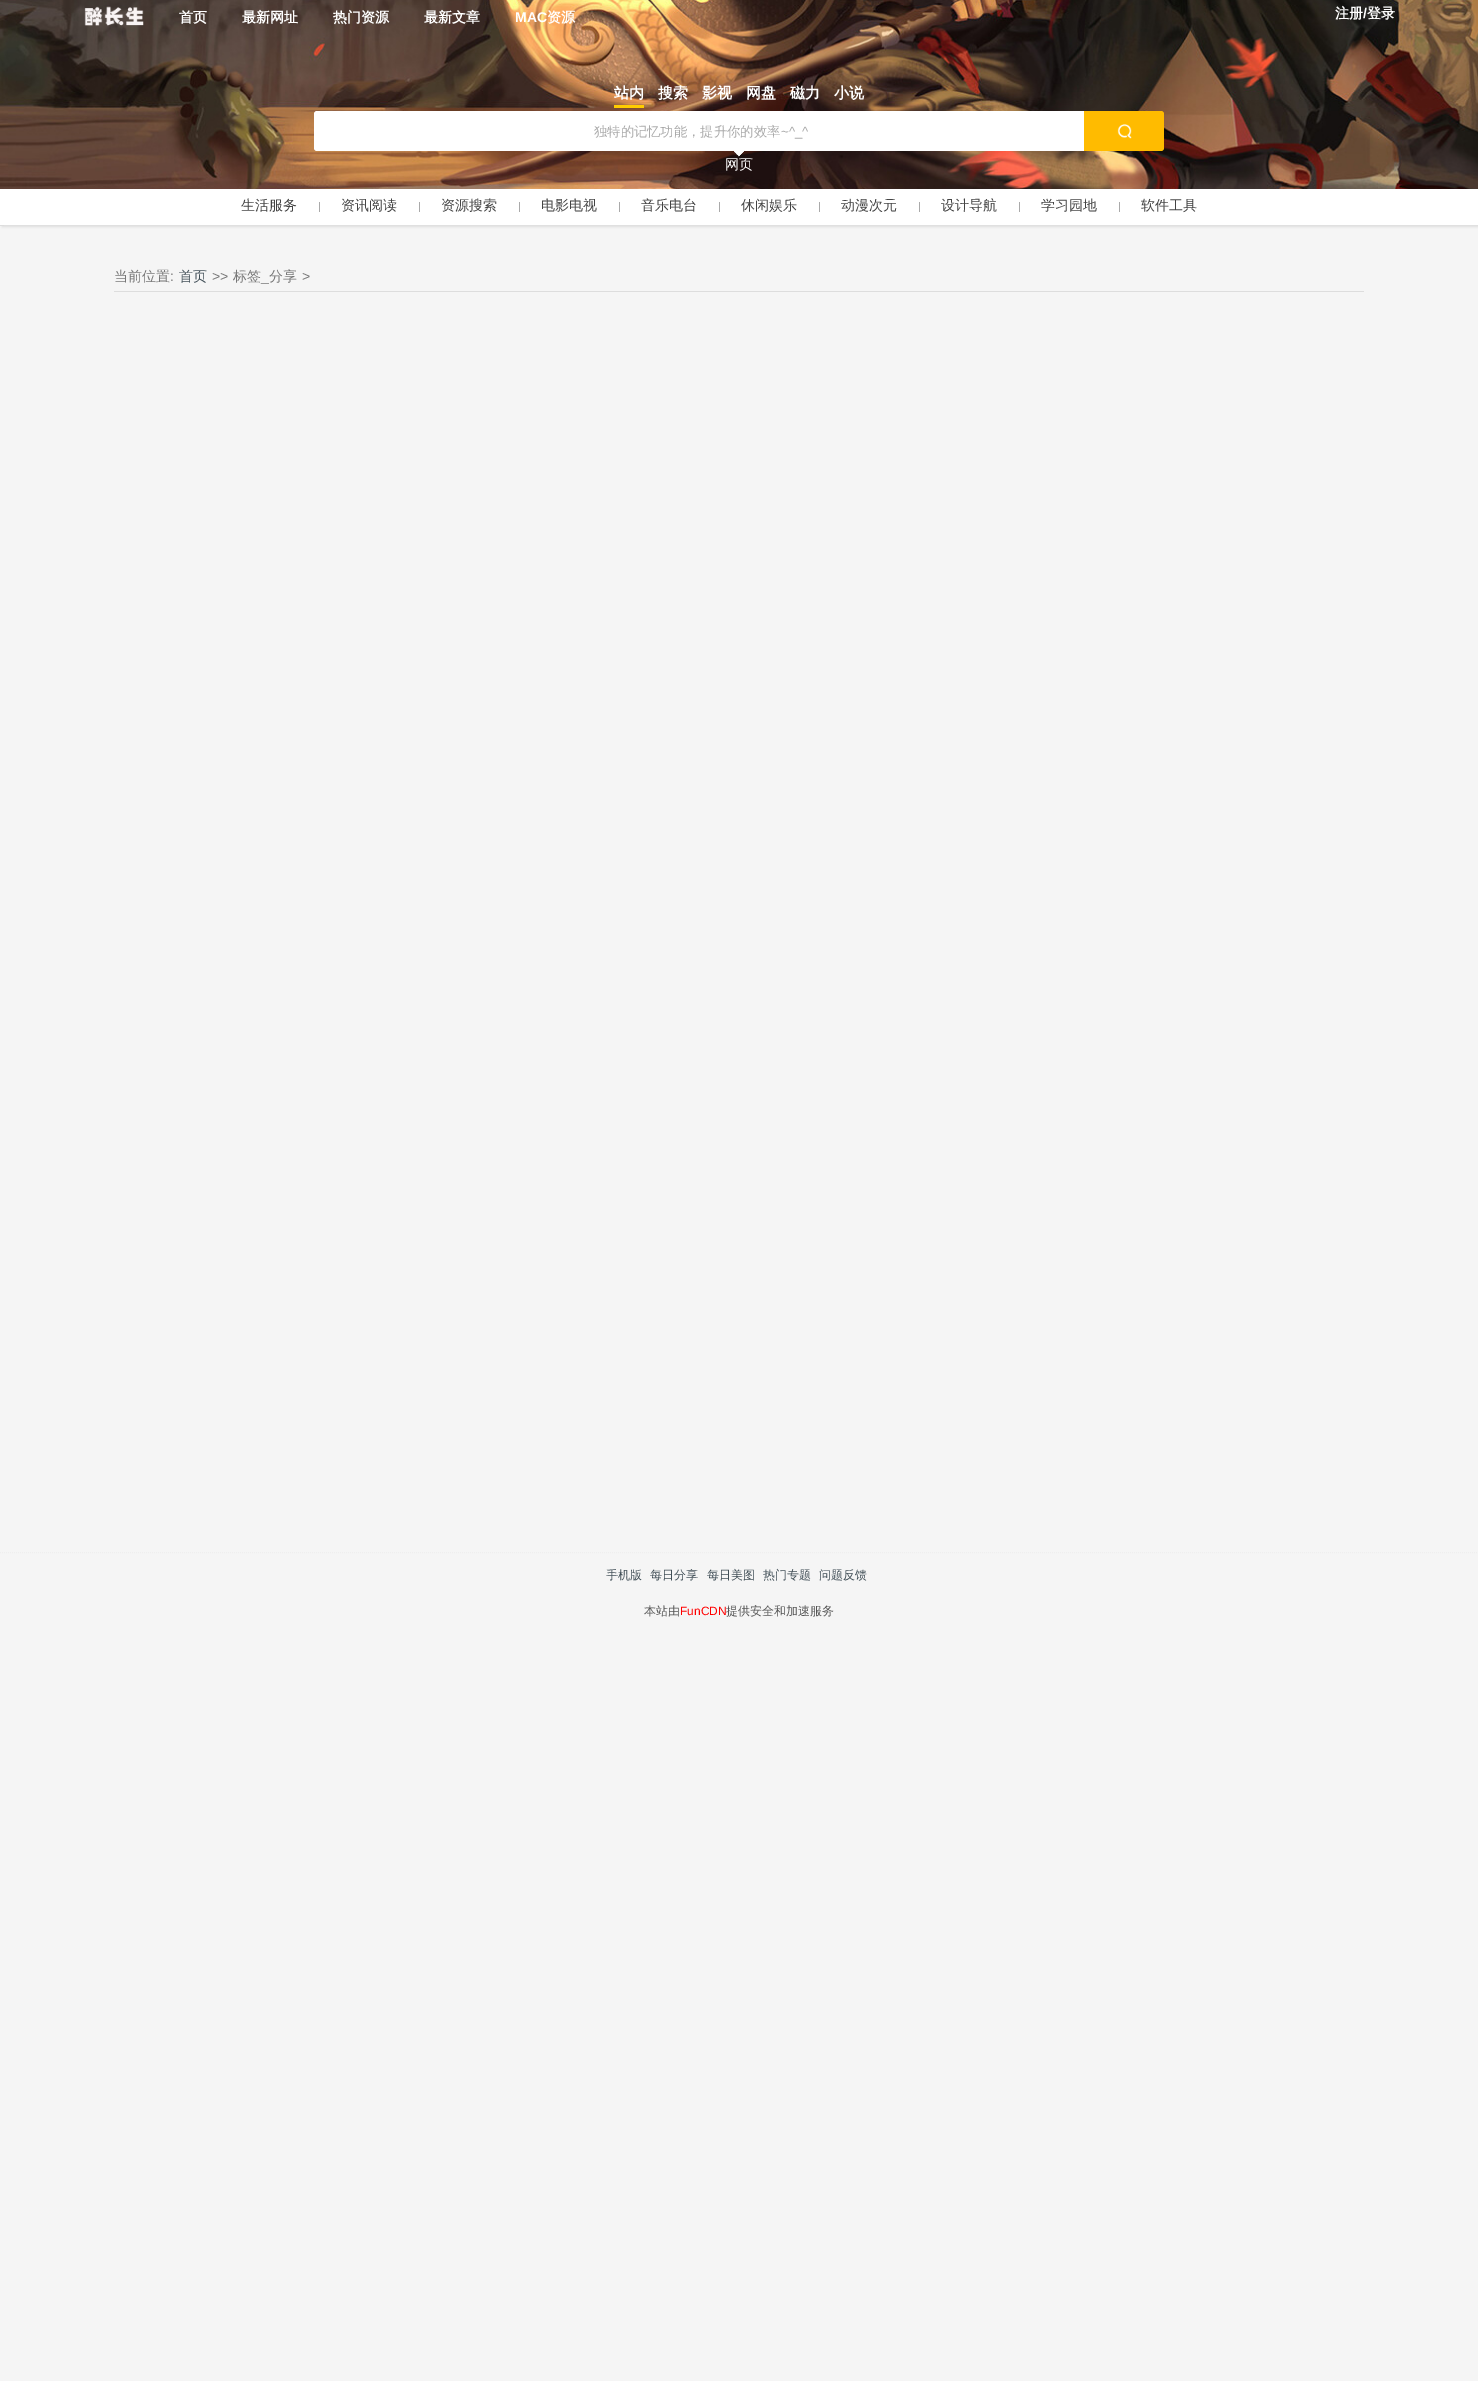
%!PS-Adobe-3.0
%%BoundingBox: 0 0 1478 2381
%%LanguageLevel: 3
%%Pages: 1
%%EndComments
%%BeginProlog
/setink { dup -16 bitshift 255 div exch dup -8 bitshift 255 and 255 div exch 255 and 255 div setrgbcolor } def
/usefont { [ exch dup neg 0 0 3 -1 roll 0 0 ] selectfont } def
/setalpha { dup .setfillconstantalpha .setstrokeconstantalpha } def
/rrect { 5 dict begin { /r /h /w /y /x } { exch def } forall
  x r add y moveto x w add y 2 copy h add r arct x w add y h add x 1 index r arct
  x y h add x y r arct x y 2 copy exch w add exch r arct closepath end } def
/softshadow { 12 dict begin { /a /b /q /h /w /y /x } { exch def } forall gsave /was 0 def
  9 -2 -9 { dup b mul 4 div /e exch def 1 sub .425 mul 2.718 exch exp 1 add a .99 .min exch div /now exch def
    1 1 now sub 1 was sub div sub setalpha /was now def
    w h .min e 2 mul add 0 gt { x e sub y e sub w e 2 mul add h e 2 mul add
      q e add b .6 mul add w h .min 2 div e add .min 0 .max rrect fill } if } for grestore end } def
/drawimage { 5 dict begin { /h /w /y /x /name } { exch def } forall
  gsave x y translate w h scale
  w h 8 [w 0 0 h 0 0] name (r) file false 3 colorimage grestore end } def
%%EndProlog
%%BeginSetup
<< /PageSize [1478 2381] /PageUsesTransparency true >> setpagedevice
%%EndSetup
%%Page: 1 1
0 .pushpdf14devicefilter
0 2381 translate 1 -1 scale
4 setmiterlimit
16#F5F5F5 setink
0 0 1478 2381 rectfill
(img1.raw) 0 0 1478 189 drawimage
(img2.raw) 84 6 60 20 drawimage
/WenQuanYiZenHei-Bold 14 usefont
16#FFFFFF setink
[
    [(首页) 179 22]
    [(最新网址) 242 22]
    [(热门资源) 333 22]
    [(最新文章) 424 22]
] { aload pop moveto show } forall
/LiberationSans-Bold 14 usefont
515 22 moveto (MAC) show
/WenQuanYiZenHei-Bold 14 usefont
547 22 moveto (资源) show
1335 18 moveto (注册) show
/LiberationSans-Bold 14 usefont
1363 18 moveto (/) show
/WenQuanYiZenHei-Bold 14 usefont
1367 18 moveto (登录) show
16#FFCC00 setink
614 105 30 3 rectfill
/WenQuanYiZenHei-Bold 15 usefont
16#FFFFFF setink
[
    [(站内) 614 98]
    [(搜索) 658 98]
    [(影视) 702 98]
    [(网盘) 746 98]
    [(磁力) 790 98]
    [(小说) 834 98]
] { aload pop moveto show } forall
317 111 moveto 1084 111 lineto 1084 151 lineto 317 151 lineto 315.5 151 314 149.5 314 148 curveto 314 114 lineto 314 112.5 315.5 111 317 111 curveto closepath fill
/WenQuanYiZenHei-Medium 13.3 usefont
16#AAAAAA setink
594 136 moveto (独特的记忆功能，提升你的效率) show
/LiberationSans-Regular 13.3 usefont
781 136 moveto (~^_^) show
16#FFBB00 setink
1084 111 moveto 1161 111 lineto 1162.5 111 1164 112.5 1164 114 curveto 1164 148 lineto 1164 149.5 1162.5 151 1161 151 curveto 1084 151 lineto closepath fill
(img3.raw) 1117 124 15 15 drawimage
(img4.raw) 734 151 10 6 drawimage
/WenQuanYiZenHei-Medium 14 usefont
16#FFFFFF setink
725 169 moveto (网页) show
16#DDDDDD setink
2 191 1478 36 0 1 1 softshadow
16#FFFFFF setink
0 189 1478 36 rectfill
16#444444 setink
241 210 moveto (生活服务) show
16#AAAAAA setink
319 202 1 10 rectfill
16#444444 setink
341 210 moveto (资讯阅读) show
16#AAAAAA setink
419 202 1 10 rectfill
16#444444 setink
441 210 moveto (资源搜索) show
16#AAAAAA setink
519 202 1 10 rectfill
16#444444 setink
541 210 moveto (电影电视) show
16#AAAAAA setink
619 202 1 10 rectfill
16#444444 setink
641 210 moveto (音乐电台) show
16#AAAAAA setink
719 202 1 10 rectfill
16#444444 setink
741 210 moveto (休闲娱乐) show
16#AAAAAA setink
819 202 1 10 rectfill
16#444444 setink
841 210 moveto (动漫次元) show
16#AAAAAA setink
919 202 1 10 rectfill
16#444444 setink
941 210 moveto (设计导航) show
16#AAAAAA setink
1019 202 1 10 rectfill
16#444444 setink
1041 210 moveto (学习园地) show
16#AAAAAA setink
1119 202 1 10 rectfill
gsave
1141 189 56 36 rectclip
16#444444 setink
1141 210 moveto (软件工具) show
grestore
16#DDDDDD setink
0 225 4 1 rectfill
114 291 1250 1 rectfill
16#777777 setink
114 281 moveto (当前位置) show
/LiberationSans-Regular 14 usefont
170 281 moveto (:) show
/WenQuanYiZenHei-Medium 14 usefont
16#414F57 setink
179 281 moveto (首页) show
/LiberationSans-Regular 14 usefont
16#777777 setink
212 281 moveto (>>) show
/WenQuanYiZenHei-Medium 14 usefont
233 281 moveto (标签) show
/LiberationSans-Regular 14 usefont
261 281 moveto (_) show
/WenQuanYiZenHei-Medium 14 usefont
269 281 moveto (分享) show
/LiberationSans-Regular 14 usefont
302 281 moveto (>) show
16#EEEEEE setink
[1 1] 0 setdash
0 1552.5 moveto 1478 1552.5 lineto stroke
/WenQuanYiZenHei-Medium 12 usefont
16#414F57 setink
[
    [(手机版) 606 1579]
    [(每日分享) 650 1579]
    [(每日美图) 707 1579]
    [(热门专题) 763 1579]
    [(问题反馈) 819 1579]
] { aload pop moveto show } forall
16#555555 setink
644 1615 moveto (本站由) show
/LiberationSans-Regular 12 usefont
16#FF0000 setink
680 1615 moveto (FunCDN) show
/WenQuanYiZenHei-Medium 12 usefont
16#555555 setink
726 1615 moveto (提供安全和加速服务) show
.poppdf14devicefilter showpage
%%EOF
